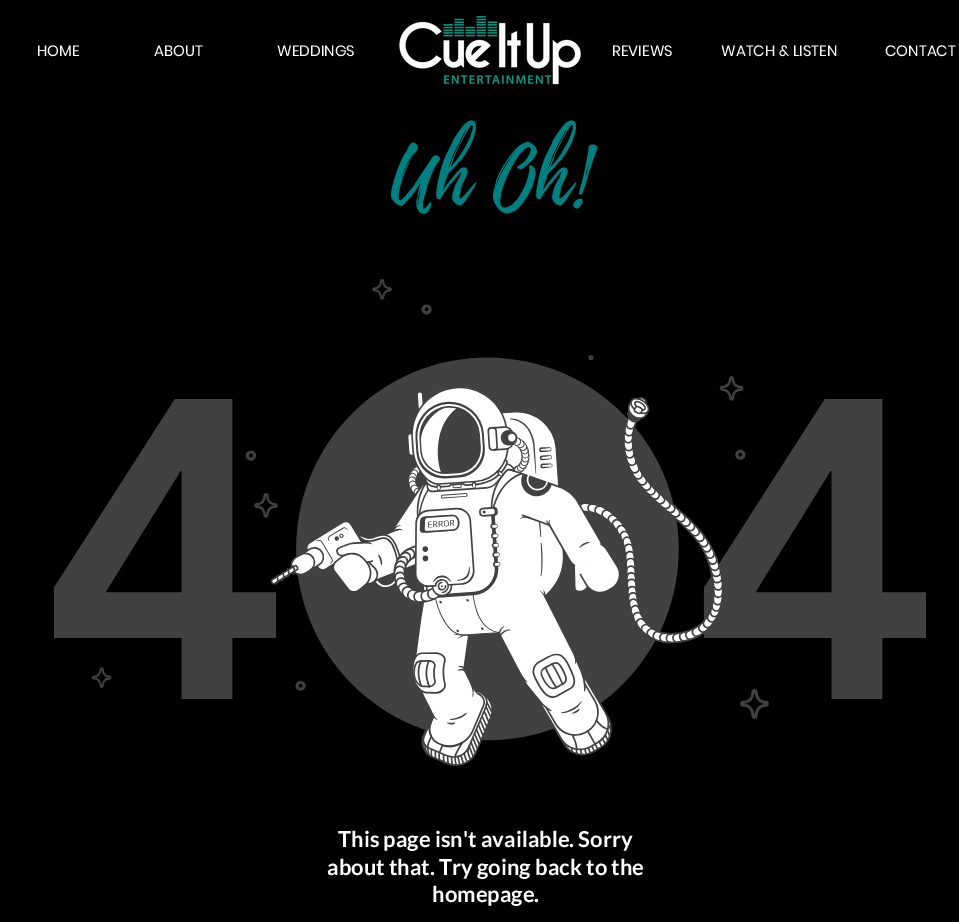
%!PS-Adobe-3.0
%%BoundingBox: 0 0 959 922
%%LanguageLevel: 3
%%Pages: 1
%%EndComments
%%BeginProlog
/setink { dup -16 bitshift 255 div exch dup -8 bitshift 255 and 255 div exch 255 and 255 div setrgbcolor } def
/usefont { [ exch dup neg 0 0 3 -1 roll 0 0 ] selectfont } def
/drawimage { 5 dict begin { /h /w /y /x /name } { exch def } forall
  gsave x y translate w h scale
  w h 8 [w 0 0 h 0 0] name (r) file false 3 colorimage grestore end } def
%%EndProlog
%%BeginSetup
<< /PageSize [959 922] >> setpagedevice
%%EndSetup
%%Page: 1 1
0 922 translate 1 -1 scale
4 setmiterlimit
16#000000 setink
0 0 959 922 rectfill
/Poppins-Regular 15 usefont
16#FFFFFF setink
[
    [(HOME) 37 56]
    [(ABOUT) 154 56]
    [(WEDDINGS) 277 56]
] { aload pop moveto show } forall
(img1.raw) 399 16 182 69 drawimage
[
    [(REVIEWS) 612 56]
    [(WATCH & LISTEN) 721 56]
    [(CONTACT) 885 56]
] { aload pop moveto show } forall
/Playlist-Regular 80 usefont
16#008080 setink
391 202 moveto (Uh Oh!) show
(img2.raw) 54 279 872 487 drawimage
/Lato-Bold 22 usefont
16#FFFFFF setink
[
    [(This page isn't available. Sorry) 338 847]
    [(about that. Try going back to the) 327 875]
    [(homepage.) 432 902]
] { aload pop moveto show } forall
showpage
%%EOF
